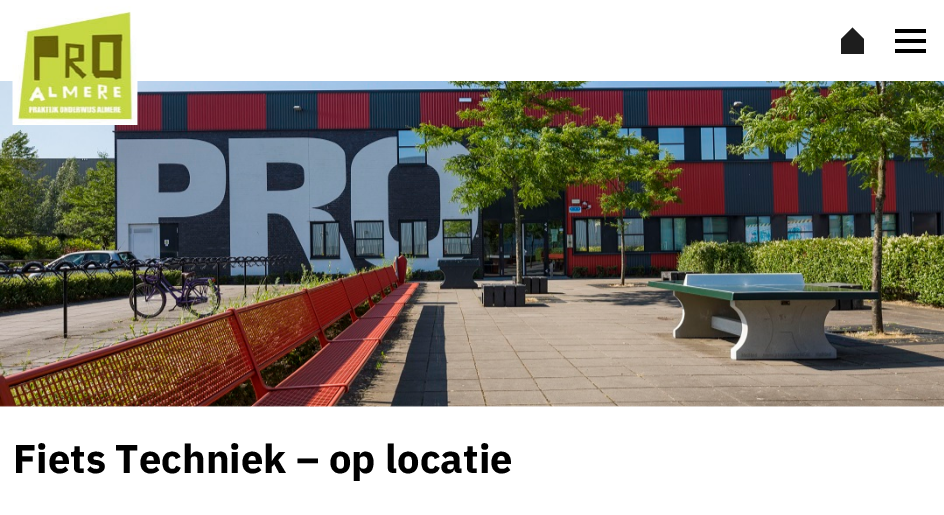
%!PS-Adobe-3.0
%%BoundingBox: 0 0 944 515
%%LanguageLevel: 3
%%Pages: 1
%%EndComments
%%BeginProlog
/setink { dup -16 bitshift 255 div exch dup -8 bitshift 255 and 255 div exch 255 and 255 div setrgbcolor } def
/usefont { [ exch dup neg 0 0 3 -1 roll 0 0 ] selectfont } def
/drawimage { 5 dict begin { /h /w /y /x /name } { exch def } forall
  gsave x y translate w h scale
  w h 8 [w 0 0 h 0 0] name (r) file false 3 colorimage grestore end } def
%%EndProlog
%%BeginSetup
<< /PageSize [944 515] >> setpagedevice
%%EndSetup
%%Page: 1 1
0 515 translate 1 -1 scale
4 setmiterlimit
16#FFFFFF setink
0 0 944 515 rectfill
(img2.raw) 0 81 944 326 drawimage
(img1.raw) 12 6 126 119 drawimage
16#1D1D1D setink
864 39 moveto 841 39 lineto 852.5 27.5 lineto closepath fill
[
    [841 39 23 15 16#1D1D1D]
    [895 39 31 4 16#000000]
    [895 29 31 4 16#000000]
    [895 49 31 4 16#000000]
] { aload pop setink rectfill } forall
/IBMPlexSans-Bold 40 usefont
13 473 moveto (Fiets Techniek – op locatie) show
showpage
%%EOF
